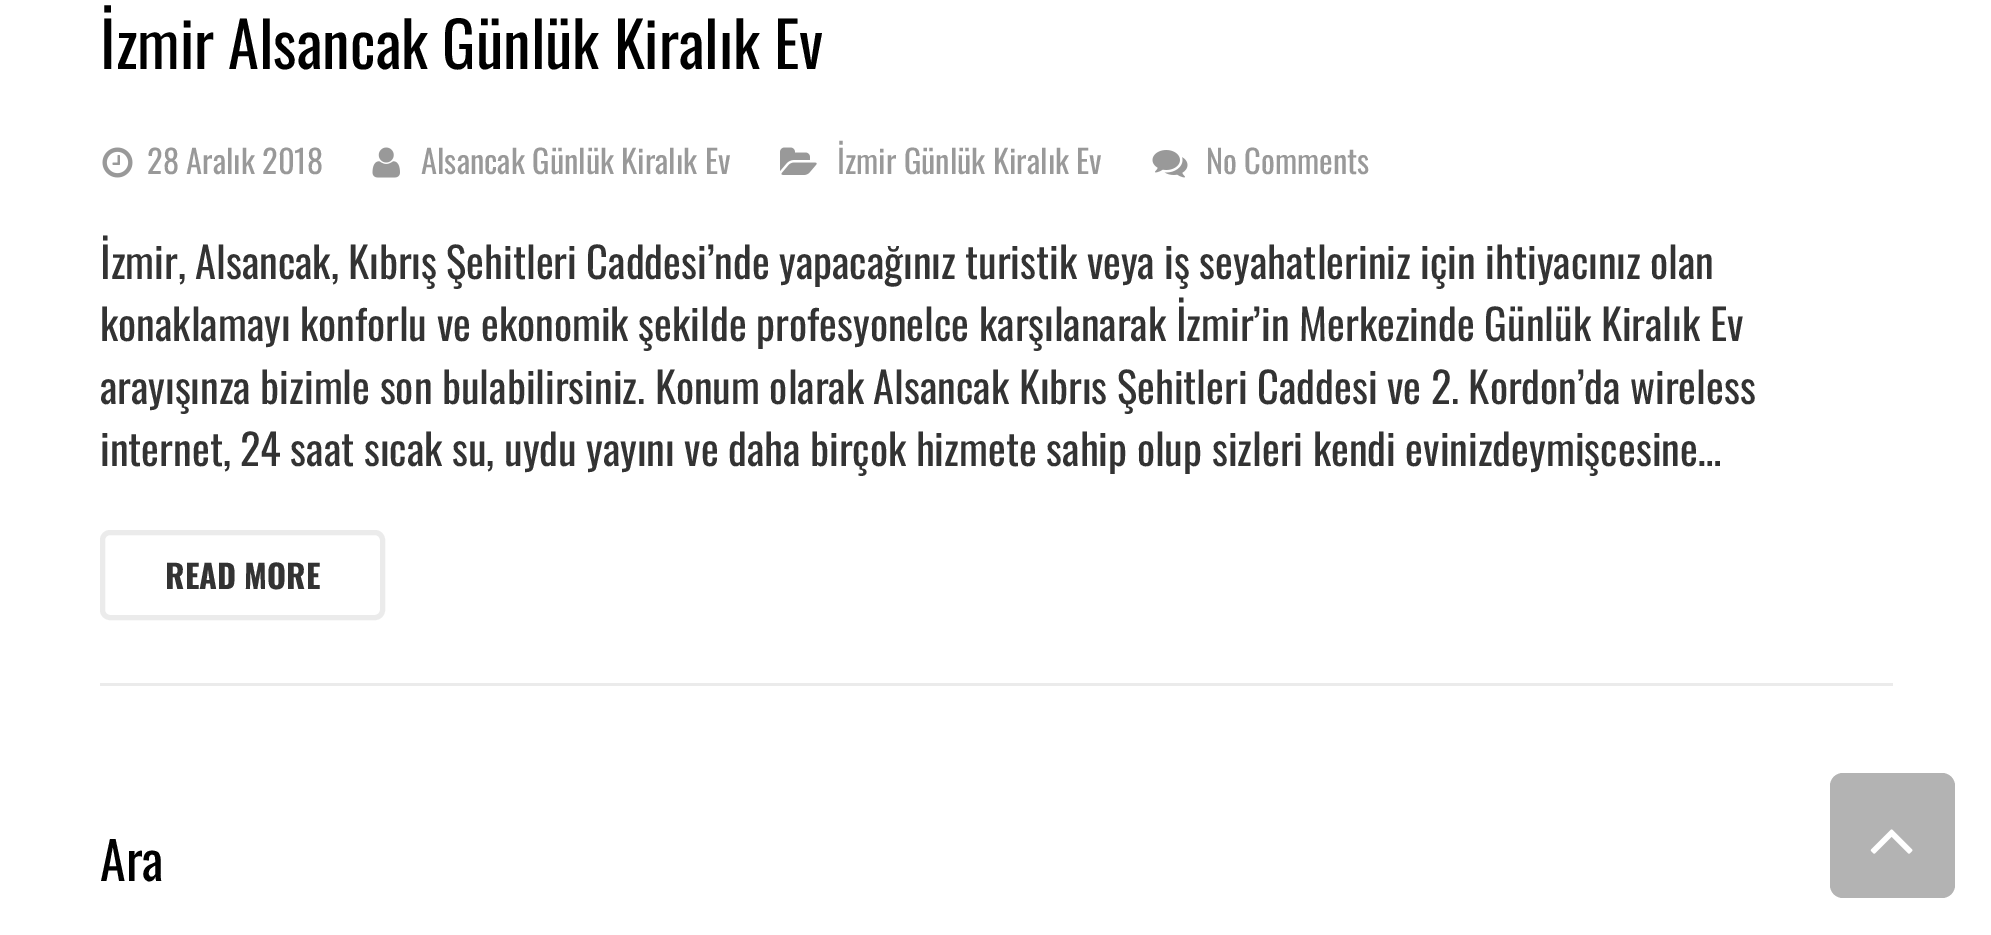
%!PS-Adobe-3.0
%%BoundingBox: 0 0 1991 935
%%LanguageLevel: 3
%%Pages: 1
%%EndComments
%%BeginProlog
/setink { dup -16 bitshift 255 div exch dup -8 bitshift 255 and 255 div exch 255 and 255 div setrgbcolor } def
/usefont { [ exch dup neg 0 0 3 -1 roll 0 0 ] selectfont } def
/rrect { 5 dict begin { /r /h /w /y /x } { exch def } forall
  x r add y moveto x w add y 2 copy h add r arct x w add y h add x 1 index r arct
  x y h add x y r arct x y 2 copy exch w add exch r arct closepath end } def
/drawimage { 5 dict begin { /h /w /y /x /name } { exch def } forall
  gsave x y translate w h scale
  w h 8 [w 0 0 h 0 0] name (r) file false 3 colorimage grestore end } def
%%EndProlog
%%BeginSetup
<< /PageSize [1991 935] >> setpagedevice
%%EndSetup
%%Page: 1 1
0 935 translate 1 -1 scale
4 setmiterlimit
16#FFFFFF setink
0 0 1991 935 rectfill
16#EBEBEB setink
100 683 1793 3 rectfill
/Oswald-Regular 62.5 usefont
16#000000 setink
100 69 moveto (İzmir Alsancak Günlük Kiralık Ev) show
(img1.raw) 102 147 31 31 drawimage
/Oswald-Regular 32.5 usefont
16#999999 setink
147 174 moveto (28 Aralık 2018) show
(img2.raw) 372 147 28 31 drawimage
421 174 moveto (Alsancak Günlük Kiralık Ev) show
(img3.raw) 780 147 37 28 drawimage
837 174 moveto (İzmir Günlük Kiralık Ev) show
(img4.raw) 1152 150 36 28 drawimage
1206 174 moveto (No Comments) show
/Oswald-Regular 42.5 usefont
16#333333 setink
100 279 moveto -0.25 0 32 (İzmir, Alsancak, Kıbrış Şehitleri Caddesi’nde yapacağınız turistik veya iş seyahatleriniz için ihtiyacınız olan) widthshow
100 341 moveto (konaklamayı konforlu ve ekonomik şekilde profesyonelce karşılanarak İzmir’in Merkezinde Günlük Kiralık Ev) show
100 404 moveto -0.2 0 32 (arayışınza bizimle son bulabilirsiniz. Konum olarak Alsancak Kıbrıs Şehitleri Caddesi ve 2. Kordon’da wireless) widthshow
100 466 moveto -0.2 0 32 (internet, 24 saat sıcak su, uydu yayını ve daha birçok hizmete sahip olup sizleri kendi evinizdeymişcesine…) widthshow
16#EBEBEB setink
5 setlinewidth
102.5 532.5 280 85 7.5 rrect stroke
/Oswald-Bold 32.5 usefont
16#333333 setink
165 589 moveto (READ MORE) show
/Oswald-Regular 52 usefont
16#000000 setink
100 881 moveto (Ara) show
16#B3B3B3 setink
1830 773 125 125 13 rrect fill
(img5.raw) 1870 829 43 25 drawimage
showpage
%%EOF
